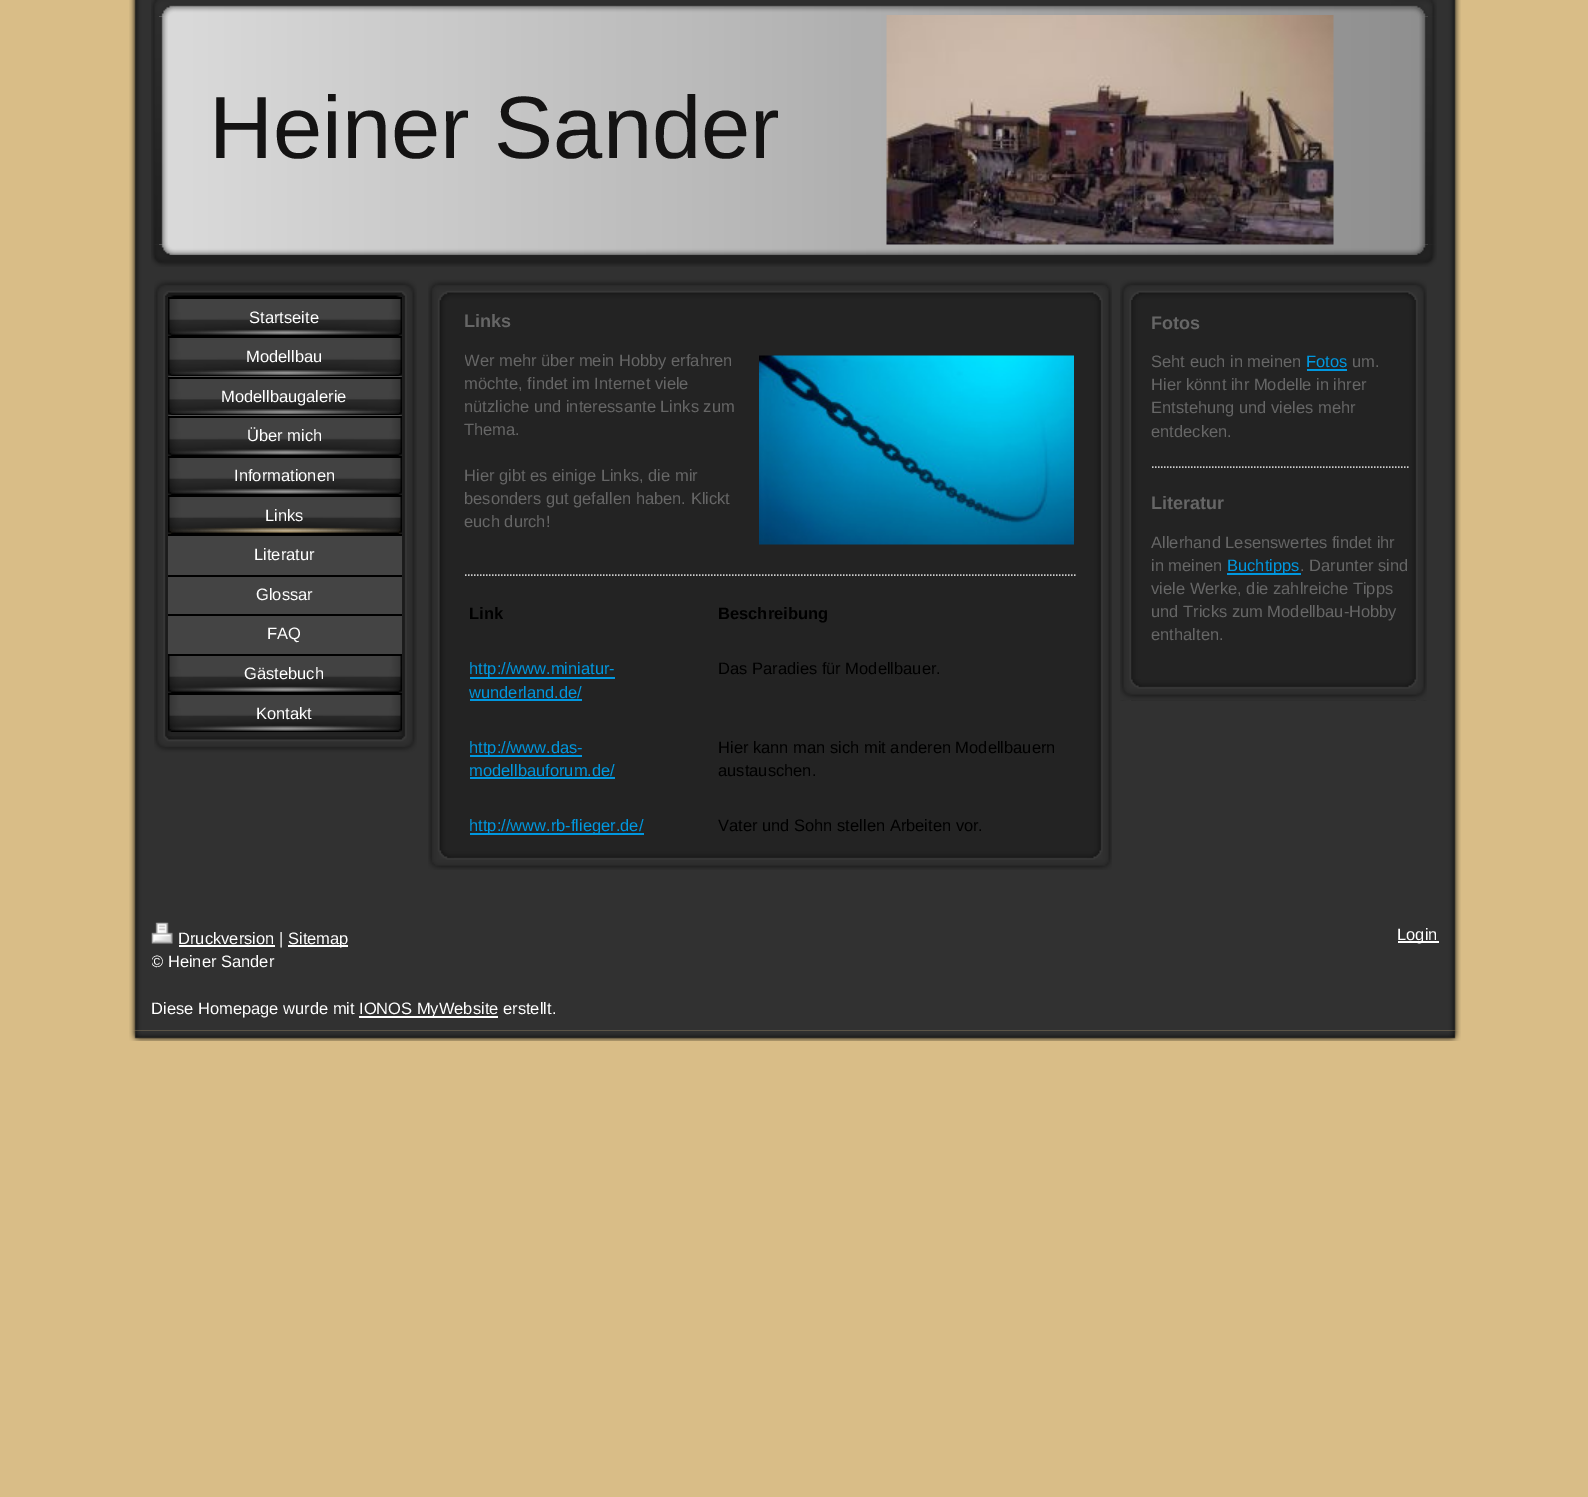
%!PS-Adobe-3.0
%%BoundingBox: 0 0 1588 1497
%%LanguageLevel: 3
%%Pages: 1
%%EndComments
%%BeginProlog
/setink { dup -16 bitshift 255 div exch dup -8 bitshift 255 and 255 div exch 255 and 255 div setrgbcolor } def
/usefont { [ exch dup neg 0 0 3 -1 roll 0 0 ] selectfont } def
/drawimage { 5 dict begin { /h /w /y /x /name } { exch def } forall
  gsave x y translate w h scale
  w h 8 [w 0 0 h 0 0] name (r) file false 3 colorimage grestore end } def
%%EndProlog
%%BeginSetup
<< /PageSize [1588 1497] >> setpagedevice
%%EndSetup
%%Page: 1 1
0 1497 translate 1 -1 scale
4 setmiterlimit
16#D9BD87 setink
0 0 1588 1497 rectfill
(img1.raw) 129 0 1332 1031 drawimage
16#EEEEEE setink
159 5 1269 250 rectfill
(img4.raw) 159 5 1269 250 drawimage
(img3.raw) 151 16 17 229 drawimage
(img5.raw) 886 15 448 230 drawimage
(img7.raw) 151 244 1286 23 drawimage
(img6.raw) 1419 16 18 229 drawimage
(img2.raw) 151 0 1286 17 drawimage
/LiberationSans-Regular 88.5 usefont
16#141313 setink
209 158 moveto (Heiner Sander) show
(img8.raw) 154 297 263 439 drawimage
(img9.raw) 154 279 263 18 drawimage
(img10.raw) 168 299 234 37 drawimage
16#000000 setink
168 297 234 2 rectfill
/LiberationSans-Regular 16.5 usefont
16#FFFFFF setink
249 323 moveto (Startseite) show
(img11.raw) 168 338 234 39 drawimage
16#000000 setink
168 336 234 2 rectfill
16#FFFFFF setink
246 362 moveto (Modellbau) show
(img12.raw) 168 376 234 40 drawimage
16#000000 setink
168 377 234 2 rectfill
16#FFFFFF setink
221 402 moveto (Modellbaugalerie) show
(img13.raw) 168 415 234 41 drawimage
16#000000 setink
168 416 234 2 rectfill
16#FFFFFF setink
247 441 moveto (Über mich) show
(img10.raw) 168 458 234 37 drawimage
16#000000 setink
168 456 234 2 rectfill
16#FFFFFF setink
234 481 moveto (Informationen) show
16#D9BD87 setink
169 527 232 7 rectfill
(img14.raw) 168 497 234 37 drawimage
16#000000 setink
168 495 234 2 rectfill
16#FFFFFF setink
265 521 moveto (Links) show
16#444444 setink
168 536 234 39 rectfill
16#000000 setink
168 534 234 2 rectfill
16#FFFFFF setink
254 560 moveto (Literatur) show
16#444444 setink
168 577 234 37 rectfill
16#000000 setink
168 575 234 2 rectfill
16#FFFFFF setink
256 600 moveto (Glossar) show
16#444444 setink
168 616 234 38 rectfill
16#000000 setink
168 614 234 2 rectfill
16#FFFFFF setink
267 639 moveto (FAQ) show
(img10.raw) 168 656 234 37 drawimage
16#000000 setink
168 654 234 2 rectfill
16#FFFFFF setink
244 679 moveto (Gästebuch) show
(img10.raw) 168 695 234 37 drawimage
16#000000 setink
168 693 234 2 rectfill
16#FFFFFF setink
256 719 moveto (Kontakt) show
(img15.raw) 154 736 263 17 drawimage
(img16.raw) 428 301 684 549 drawimage
(img17.raw) 428 279 684 22 drawimage
/LiberationSans-Bold 18 usefont
16#666666 setink
464 327 moveto (Links) show
gsave
465 350 611 201 rectclip
/LiberationSans-Regular 16.5 usefont
464 366 moveto (Wer mehr über mein Hobby erfahren) show
grestore
/LiberationSans-Regular 16.5 usefont
[
    [(möchte, findet im Internet viele) 464 389]
    [(nützliche und interessante Links zum) 464 412]
    [(Thema.) 464 435]
    [(Hier gibt es einige Links, die mir) 464 481]
    [(besonders gut gefallen haben. Klickt) 464 504]
    [(euch durch!) 464 527]
] { aload pop moveto show } forall
(img18.raw) 759 355 315 190 drawimage
16#CCCCCC setink
1.5 setlinewidth
[1.5 1.5] 0 setdash
465 575 moveto 1075.5 575 lineto stroke
/LiberationSans-Bold 16.5 usefont
16#000000 setink
469 619 moveto (Link) show
718 619 moveto (Beschreibung) show
16#0097DF setink
470 677 145 2 rectfill
/LiberationSans-Regular 16.5 usefont
469 674 moveto (http://www.miniatur-) show
469 698 moveto (wunderland.de/) show
470 699 112 2 rectfill
16#000000 setink
718 674 moveto (Das Paradies für Modellbauer.) show
16#0097DF setink
470 755 112 2 rectfill
469 753 moveto (http://www.das-) show
469 776 moveto (modellbauforum.de/) show
470 777 145 2 rectfill
16#000000 setink
718 753 moveto (Hier kann man sich mit anderen Modellbauern) show
718 776 moveto (austauschen.) show
16#0097DF setink
470 833 174 2 rectfill
469 831 moveto (http://www.rb-flieger.de/) show
16#000000 setink
718 831 moveto (Vater und Sohn stellen Arbeiten vor.) show
(img19.raw) 428 850 684 20 drawimage
(img20.raw) 1120 300 307 401 drawimage
(img21.raw) 1120 279 307 21 drawimage
/LiberationSans-Bold 18 usefont
16#666666 setink
1151 329 moveto (Fotos) show
/LiberationSans-Regular 16.5 usefont
1151 367 moveto (Seht euch in meinen) show
16#0097DF setink
1306 367 moveto (Fotos) show
1307 369 40 2 rectfill
16#666666 setink
[
    [(um.) 1352 367]
    [(Hier könnt ihr Modelle in ihrer) 1151 390]
    [(Entstehung und vieles mehr) 1151 413]
    [(entdecken.) 1151 437]
] { aload pop moveto show } forall
16#CCCCCC setink
1152 467 moveto 1410 467 lineto stroke
/LiberationSans-Bold 18 usefont
16#666666 setink
1151 509 moveto (Literatur) show
/LiberationSans-Regular 16.5 usefont
1151 548 moveto (Allerhand Lesenswertes findet ihr) show
1151 571 moveto (in meinen) show
16#0097DF setink
1227 573 74 2 rectfill
1227 571 moveto (Buchtipps) show
16#666666 setink
[
    [(. Darunter sind) 1300 571]
    [(viele Werke, die zahlreiche Tipps) 1151 594]
    [(und Tricks zum Modellbau-Hobby) 1151 617]
    [(enthalten.) 1151 640]
] { aload pop moveto show } forall
(img22.raw) 1120 679 307 22 drawimage
(img23.raw) 151 922 22 22 drawimage
16#FFFFFF setink
179 945 96 2 rectfill
178 944 moveto (Druckversion |) show
288 945 60 2 rectfill
288 944 moveto (Sitemap) show
gsave
152 923 1287 97 rectclip
151 967 moveto (© Heiner Sander) show
grestore
151 1014 moveto (Diese Homepage wurde mit) show
359 1016 139 2 rectfill
359 1014 moveto (IONOS MyWebsite erstellt.) show
1398 941 41 2 rectfill
1397 940 moveto (Login) show
(img24.raw) 129 1030 1332 11 drawimage
showpage
%%EOF
